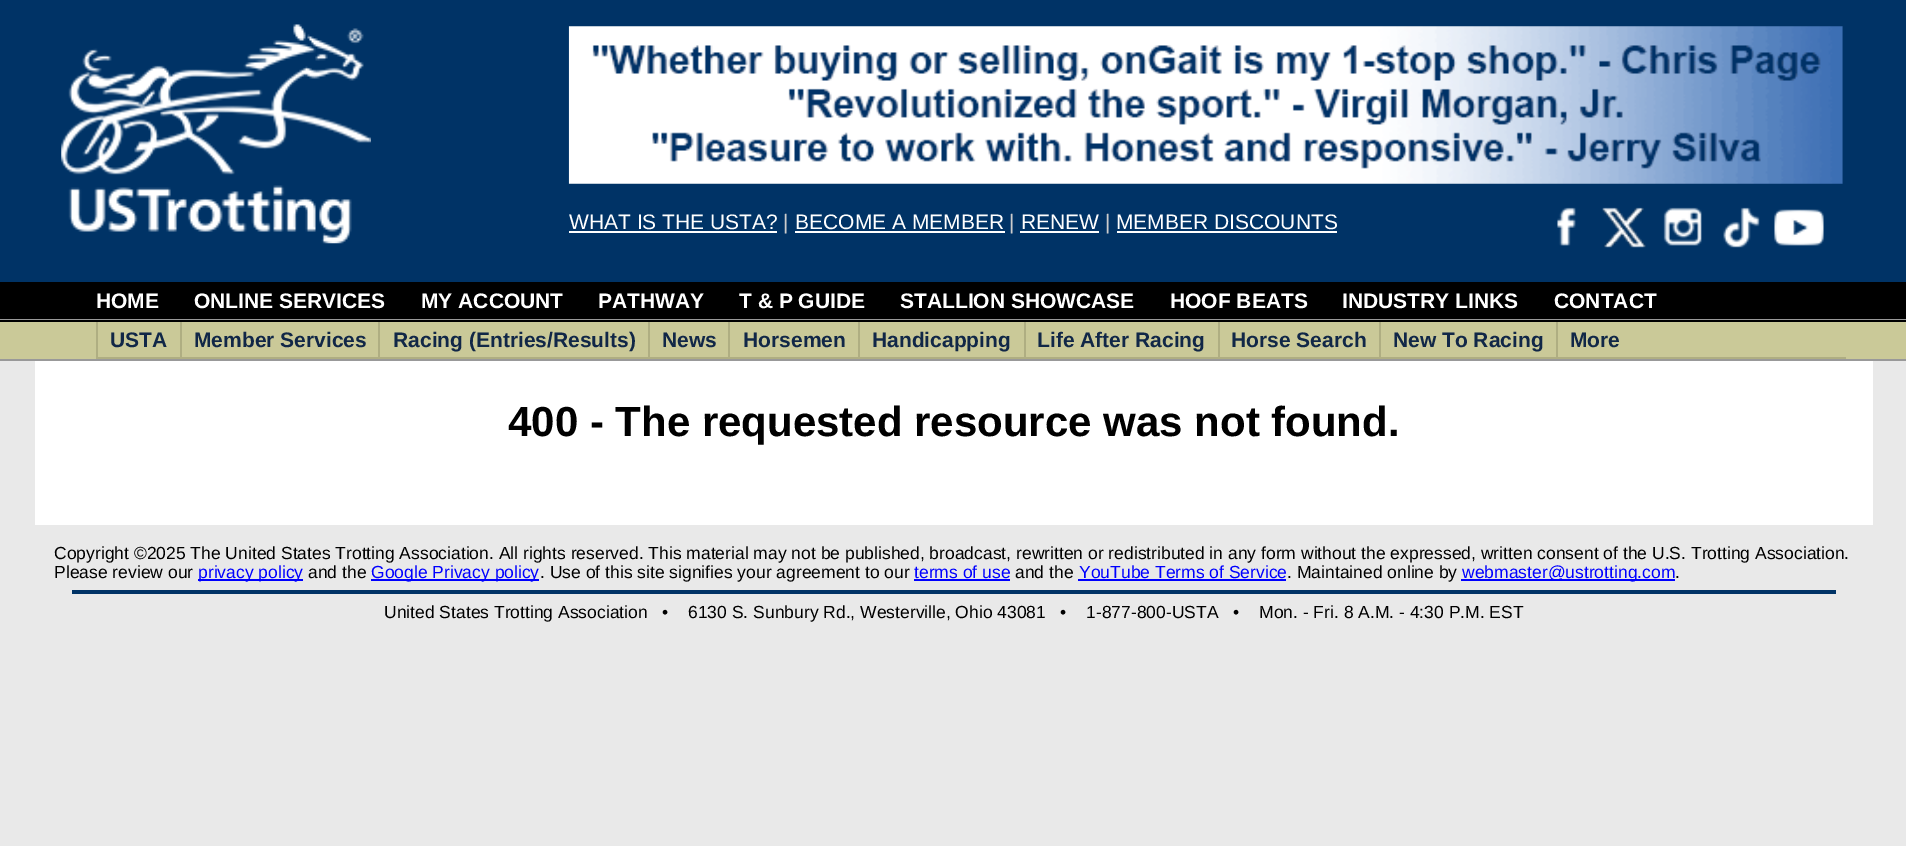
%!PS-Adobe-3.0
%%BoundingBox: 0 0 1906 846
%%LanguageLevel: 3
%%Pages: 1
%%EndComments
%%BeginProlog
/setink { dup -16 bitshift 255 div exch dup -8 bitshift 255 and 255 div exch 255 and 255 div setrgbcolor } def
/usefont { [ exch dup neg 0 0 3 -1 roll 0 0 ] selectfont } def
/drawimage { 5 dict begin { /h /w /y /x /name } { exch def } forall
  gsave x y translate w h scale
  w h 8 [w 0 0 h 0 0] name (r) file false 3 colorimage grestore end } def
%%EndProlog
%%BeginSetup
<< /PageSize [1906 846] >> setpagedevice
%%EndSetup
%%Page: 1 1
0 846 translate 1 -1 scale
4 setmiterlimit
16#E9E9E9 setink
0 0 1906 846 rectfill
16#003366 setink
0 0 1906 282 rectfill
(img1.raw) 61 24 310 220 drawimage
(img2.raw) 568 26 1275 158 drawimage
/LiberationSans-Regular 21 usefont
16#FFFFFF setink
569 229 moveto (WHAT IS THE USTA?) show
569 231 208 2 rectfill
16#CCCCCC setink
783 229 moveto (|) show
16#FFFFFF setink
795 229 moveto (BECOME A MEMBER) show
795 231 210 2 rectfill
16#CCCCCC setink
1009 229 moveto (|) show
16#FFFFFF setink
1021 229 moveto (RENEW) show
1020 231 79 2 rectfill
16#CCCCCC setink
1105 229 moveto (|) show
16#FFFFFF setink
1116 229 moveto (MEMBER DISCOUNTS) show
1117 231 220 2 rectfill
(img3.raw) 1557 207 19 39 drawimage
(img4.raw) 1602 207 44 41 drawimage
(img5.raw) 1663 207 39 39 drawimage
(img6.raw) 1723 207 37 41 drawimage
(img7.raw) 1774 209 50 37 drawimage
16#000000 setink
0 282 1906 37 rectfill
16#999999 setink
0 319 1906 1 rectfill
/LiberationSans-Bold 21 usefont
16#FFFFFF setink
[
    [(HOME) 96 308]
    [(ONLINE SERVICES) 194 308]
    [(MY ACCOUNT) 421 308]
    [(PATHWAY) 598 308]
    [(T & P GUIDE) 739 308]
    [(STALLION SHOWCASE) 900 308]
    [(HOOF BEATS) 1170 308]
    [(INDUSTRY LINKS) 1342 308]
    [(CONTACT) 1554 308]
] { aload pop moveto show } forall
[
    [0 322 1906 37 16#CAC998]
    [0 320 1906 2 16#000000]
    [0 359 1906 2 16#999999]
    [96 357 1750 2 16#AFAE82]
    [96 322 2 35 16#AFAE82]
] { aload pop setink rectfill } forall
16#112747 setink
110 347 moveto (USTA) show
16#AFAE82 setink
180 322 2 35 rectfill
16#112747 setink
194 347 moveto (Member Services) show
16#AFAE82 setink
378 322 2 35 rectfill
16#112747 setink
393 347 moveto (Racing \(Entries/Results\)) show
16#AFAE82 setink
648 322 2 35 rectfill
16#112747 setink
662 347 moveto (News) show
16#AFAE82 setink
728 322 2 35 rectfill
16#112747 setink
743 347 moveto (Horsemen) show
16#AFAE82 setink
858 322 2 35 rectfill
16#112747 setink
872 347 moveto (Handicapping) show
16#AFAE82 setink
1024 322 2 35 rectfill
16#112747 setink
1037 347 moveto (Life After Racing) show
16#AFAE82 setink
1218 322 2 35 rectfill
16#112747 setink
1231 347 moveto (Horse Search) show
16#AFAE82 setink
1379 322 2 35 rectfill
16#112747 setink
1393 347 moveto (New To Racing) show
16#AFAE82 setink
1556 322 2 35 rectfill
16#112747 setink
1570 347 moveto (More) show
16#FFFFFF setink
35 361 1838 164 rectfill
/LiberationSans-Bold 42 usefont
16#000000 setink
508 436 moveto (400 - The requested resource was not found.) show
/LiberationSans-Regular 17.5 usefont
54 559 moveto (Copyright ©2025 The United States Trotting Association. All rights reserved. This material may not be published, broadcast, rewritten or redistributed in any form without the expressed, written consent of the U.S. Trotting Association.) show
54 578 moveto (Please review our) show
16#0000FF setink
198 579 105 2 rectfill
198 578 moveto (privacy policy) show
16#000000 setink
308 578 moveto (and the) show
16#0000FF setink
371 579 168 2 rectfill
371 578 moveto (Google Privacy policy) show
16#000000 setink
540 578 moveto (. Use of this site signifies your agreement to our) show
16#0000FF setink
914 578 moveto (terms of use) show
914 579 96 2 rectfill
16#000000 setink
1015 578 moveto (and the) show
16#0000FF setink
1079 578 moveto (YouTube Terms of Service) show
1078 579 208 2 rectfill
16#000000 setink
1287 578 moveto (. Maintained online by) show
16#0000FF setink
1461 579 214 2 rectfill
1462 578 moveto (webmaster@ustrotting.com) show
16#000000 setink
1675 578 moveto (.) show
16#003366 setink
72 590 1764 4 rectfill
16#000000 setink
[
    [(United States Trotting Association   •) 384 618]
    [(6130 S. Sunbury Rd., Westerville, Ohio 43081   •) 688 618]
    [(1-877-800-USTA   •) 1086 618]
    [(Mon. - Fri. 8 A.M. - 4:30 P.M. EST) 1259 618]
] { aload pop moveto show } forall
showpage
%%EOF
